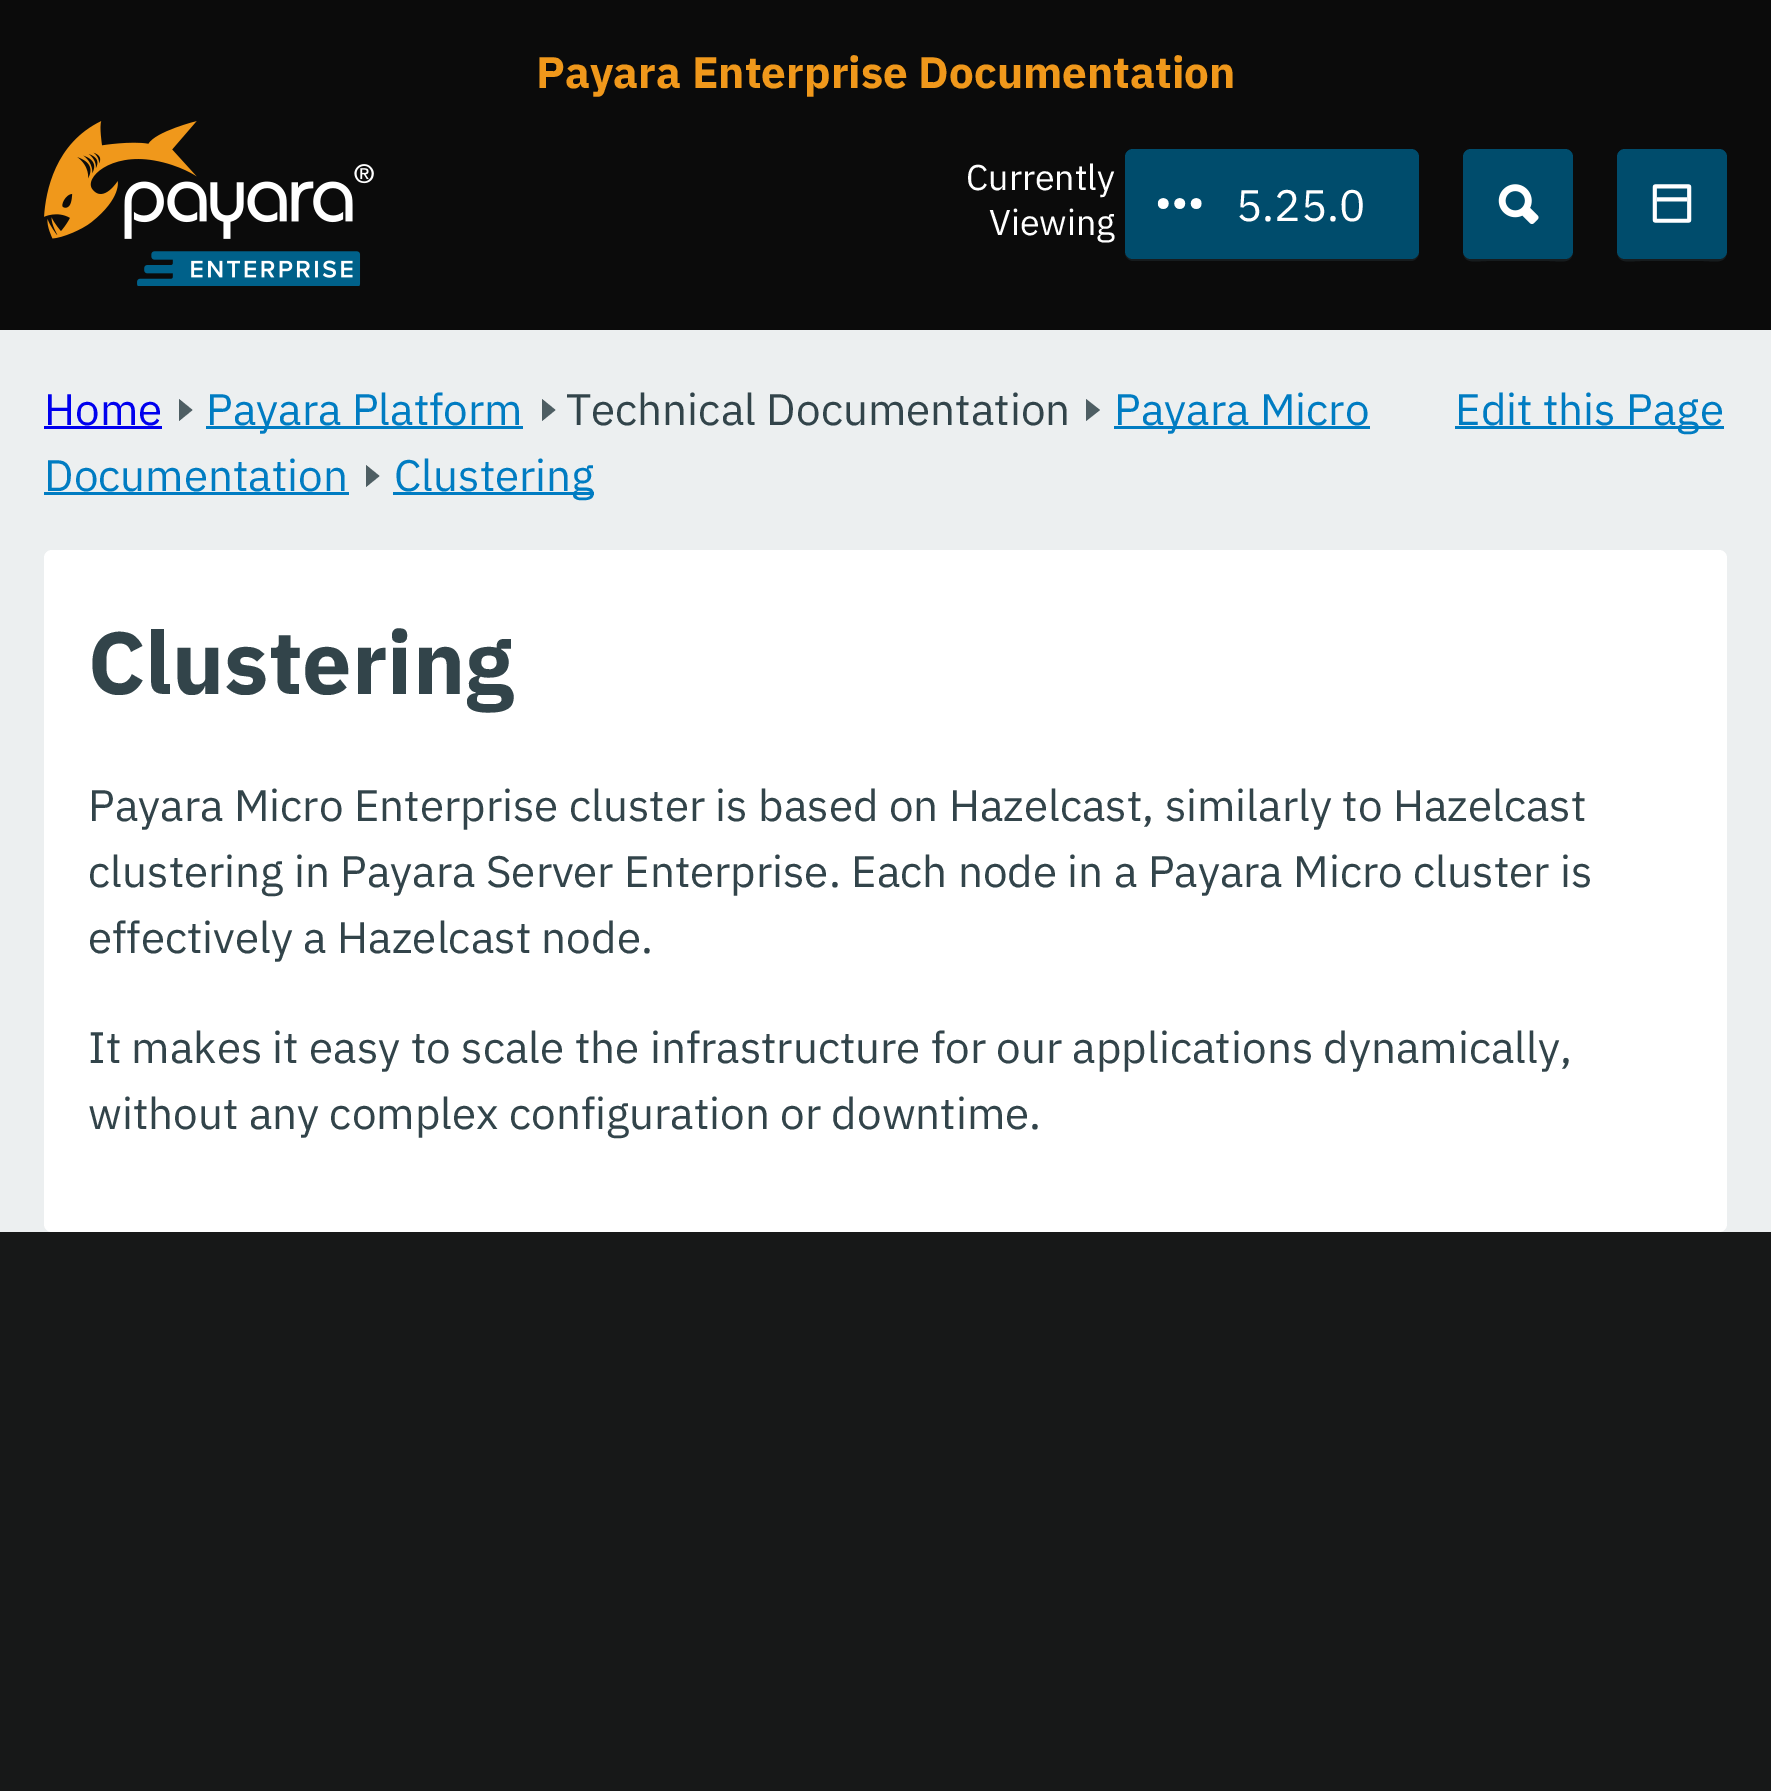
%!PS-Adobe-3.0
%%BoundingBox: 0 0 1771 1791
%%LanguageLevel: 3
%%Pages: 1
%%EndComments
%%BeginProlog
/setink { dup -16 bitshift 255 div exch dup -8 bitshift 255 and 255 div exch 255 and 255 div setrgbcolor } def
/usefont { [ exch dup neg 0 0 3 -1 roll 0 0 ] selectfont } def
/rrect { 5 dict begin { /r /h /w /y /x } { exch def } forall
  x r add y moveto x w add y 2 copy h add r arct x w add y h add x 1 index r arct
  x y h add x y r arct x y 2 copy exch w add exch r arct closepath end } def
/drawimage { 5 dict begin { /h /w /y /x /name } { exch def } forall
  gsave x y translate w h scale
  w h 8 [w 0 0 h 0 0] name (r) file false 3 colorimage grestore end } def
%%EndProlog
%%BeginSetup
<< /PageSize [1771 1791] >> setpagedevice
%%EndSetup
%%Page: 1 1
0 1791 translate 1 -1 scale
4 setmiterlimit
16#171818 setink
0 0 1771 1791 rectfill
16#0B0B0B setink
0 0 1771 330 rectfill
/IBMPlexSans-Bold 44 usefont
16#F0981B setink
536 88 moveto (Payara Enterprise Documentation) show
(img1.raw) 44 121 330 165 drawimage
/IBMPlexSans-Regular 35.75 usefont
16#FFFFFF setink
966 190 moveto (Currently) show
989 235 moveto (Viewing) show
16#171C1E setink
1125 252 moveto 1125 253 lineto 1125 257 1129 261 1133 261 curveto 1411 261 lineto 1415 261 1419 257 1419 253 curveto 1419 250 lineto 1419 255 1415 258 1411 258 curveto 1133 258 lineto 1129 258 1126 256 1125 252 curveto closepath fill
16#004C6C setink
1125 149 294 110 8 rrect fill
(img2.raw) 1157 198 45 11 drawimage
/IBMPlexSans-Regular 44 usefont
16#FFFFFF setink
1236 221 moveto (5.25.0) show
16#171C1E setink
1463 250 moveto 1463 265 1475 261 1487 261 curveto 1549 261 lineto 1561 261 1573 265 1573 250 curveto 1573 255 1569 258 1565 258 curveto 1471 258 lineto 1467 258 1463 255 1463 250 curveto closepath fill
16#004C6C setink
1463 149 110 110 8 rrect fill
(img3.raw) 1498 184 41 40 drawimage
16#171C1E setink
1617 250 moveto 1617 265 1629 261 1641 261 curveto 1703 261 lineto 1715 261 1727 265 1727 250 curveto 1727 255 1723 258 1719 258 curveto 1625 258 lineto 1621 258 1617 255 1617 250 curveto closepath fill
16#004C6C setink
1617 149 110 110 8 rrect fill
(img4.raw) 1652 184 40 39 drawimage
16#ECEFF0 setink
0 330 1771 902 rectfill
16#4E5E63 setink
1086 421 moveto 1086 399 lineto 1100 410 lineto closepath fill
16#007CC2 setink
1114 426 256 3 rectfill
1114 425 moveto (Payara Micro) show
44 491 moveto (Documentation) show
44 492 305 3 rectfill
16#0000EE setink
44 425 moveto (Home) show
44 426 118 3 rectfill
16#4E5E63 setink
179 421 moveto 179 399 lineto 192.5 410 lineto closepath fill
16#007CC2 setink
206 426 317 3 rectfill
206 425 moveto (Payara Platform) show
16#4E5E63 setink
542 421 moveto 542 399 lineto 555.5 410 lineto closepath fill
16#32444A setink
566 425 moveto (Technical Documentation) show
16#4E5E63 setink
366 487 moveto 366 465 lineto 379.5 476 lineto closepath fill
16#007CC2 setink
393 492 201 3 rectfill
394 491 moveto (Clustering) show
1455 426 269 3 rectfill
1455 425 moveto (Edit this Page) show
16#FFFFFF setink
44 550 1683 682 8 rrect fill
/IBMPlexSans-Bold 88 usefont
16#32444A setink
88 694 moveto (Clustering) show
/IBMPlexSans-Regular 44 usefont
[
    [(Payara Micro Enterprise cluster is based on Hazelcast, similarly to Hazelcast) 88 821]
    [(clustering in Payara Server Enterprise. Each node in a Payara Micro cluster is) 88 887]
    [(effectively a Hazelcast node.) 88 953]
    [(It makes it easy to scale the infrastructure for our applications dynamically,) 88 1063]
    [(without any complex configuration or downtime.) 88 1129]
] { aload pop moveto show } forall
showpage
%%EOF
